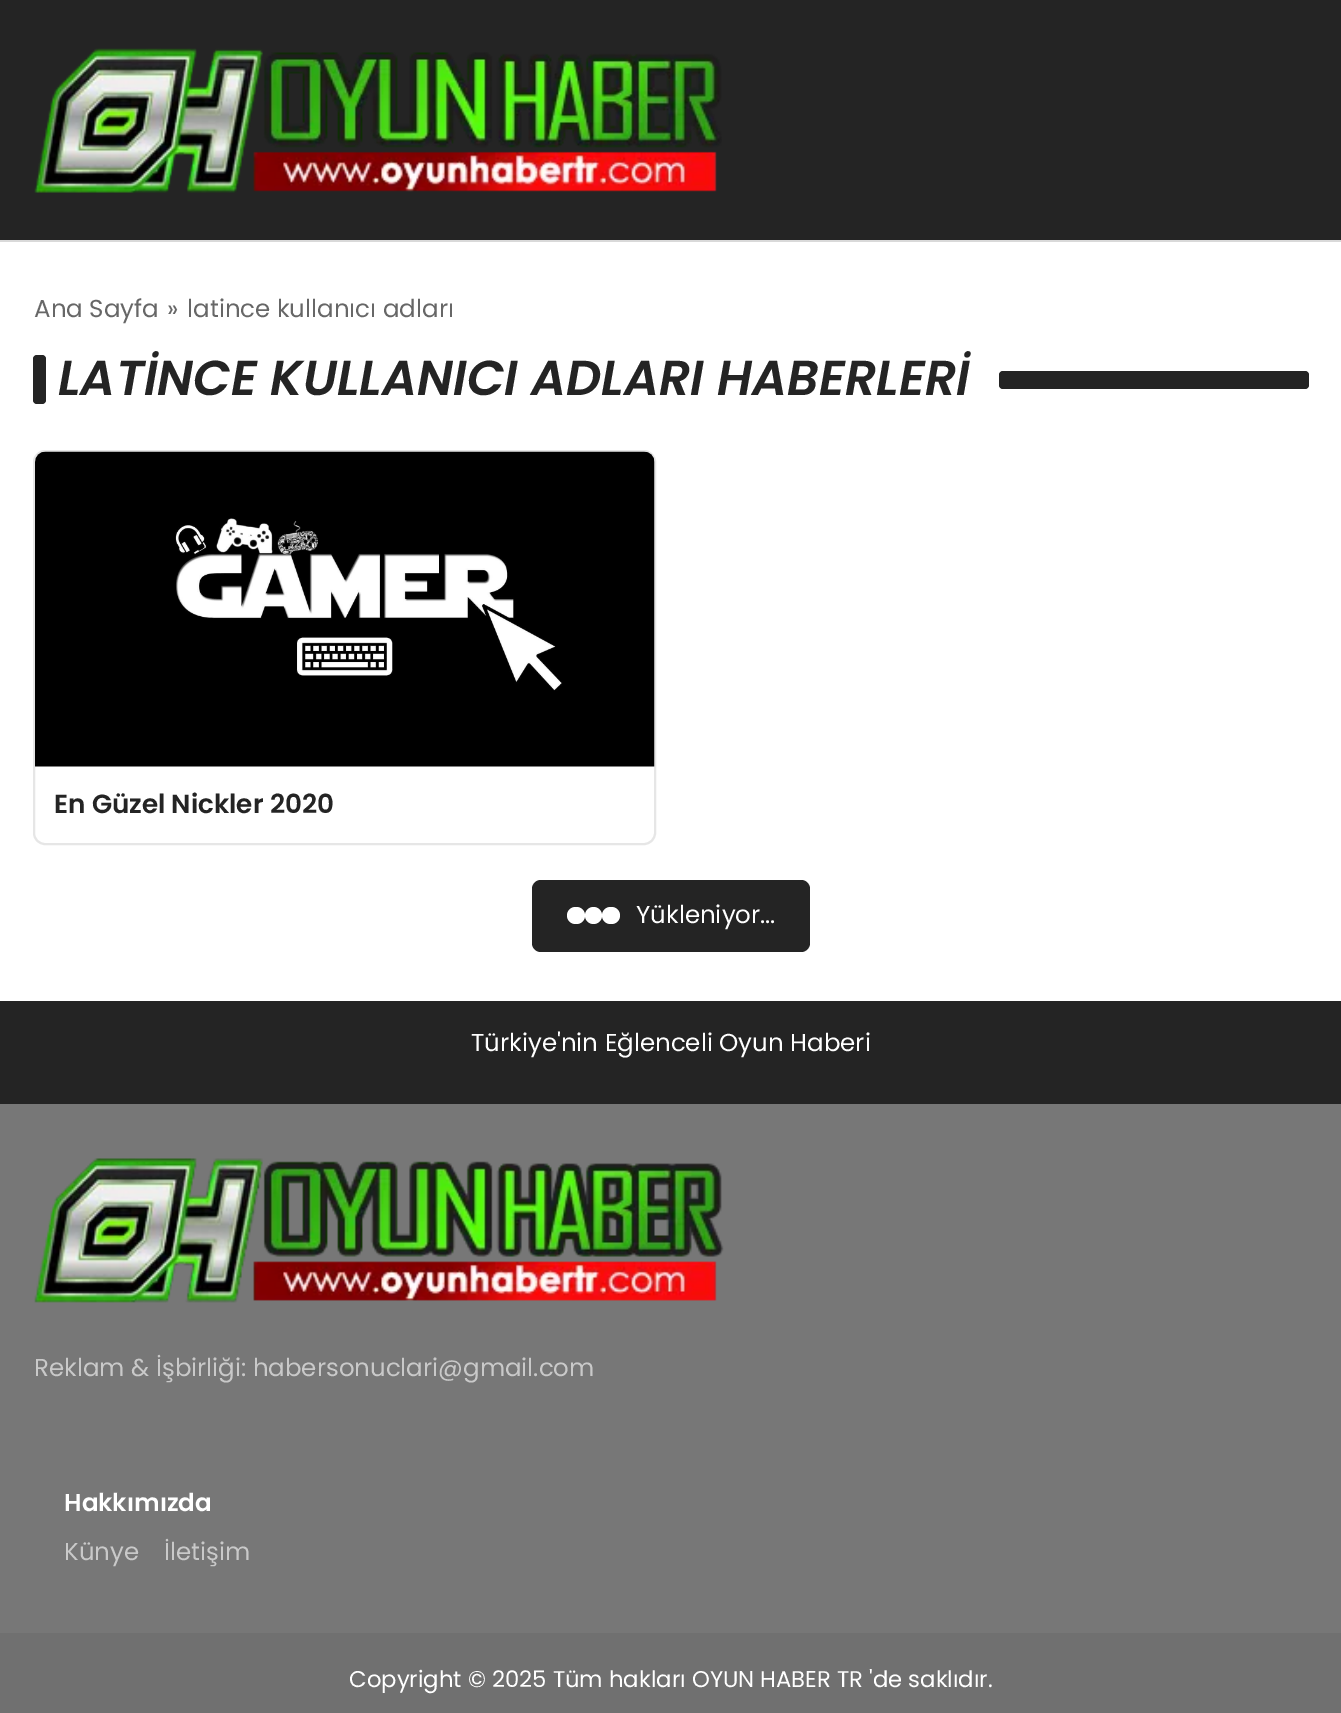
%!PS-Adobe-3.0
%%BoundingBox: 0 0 1341 1713
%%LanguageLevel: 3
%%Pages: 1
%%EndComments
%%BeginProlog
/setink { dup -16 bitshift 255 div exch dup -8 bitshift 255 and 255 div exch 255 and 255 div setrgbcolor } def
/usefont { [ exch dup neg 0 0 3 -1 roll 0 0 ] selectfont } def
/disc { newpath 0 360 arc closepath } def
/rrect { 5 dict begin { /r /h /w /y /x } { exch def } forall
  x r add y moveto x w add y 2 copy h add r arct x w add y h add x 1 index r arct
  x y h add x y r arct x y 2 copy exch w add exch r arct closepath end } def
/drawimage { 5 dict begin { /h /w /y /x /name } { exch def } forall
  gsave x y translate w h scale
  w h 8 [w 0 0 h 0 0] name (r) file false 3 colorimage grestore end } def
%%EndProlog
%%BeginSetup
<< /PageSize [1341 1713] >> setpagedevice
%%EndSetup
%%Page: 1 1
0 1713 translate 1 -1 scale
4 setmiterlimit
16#FFFFFF setink
0 0 1341 1713 rectfill
16#242424 setink
0 0 1341 240 rectfill
(img1.raw) 34 48 688 145 drawimage
16#D9D9D9 setink
0 240 1341 2 rectfill
/Poppins-Regular 24.5 usefont
16#676767 setink
[
    [(Ana Sayfa) 34 317]
    [(») 167 317]
    [(latince kullanıcı adları) 187 317]
] { aload pop moveto show } forall
16#242424 setink
33 355 13 49 4 rrect fill
/Poppins-SemiBoldItalic 49 usefont
58 395 moveto (LATİNCE KULLANICI ADLARI HABERLERİ) show
999 371 310 18 4 rrect fill
16#E6E6E6 setink
2 setlinewidth
34 451 621 393 11 rrect stroke
(img2.raw) 35 451 620 316 drawimage
/Poppins-SemiBold 26.25 usefont
16#242424 setink
54 813 moveto (En Güzel Nickler 2020) show
532 880 278 72 9 rrect fill
16#FFFFFF setink
567 907 18 17 8.5 rrect fill
593.5 915.5 8.5 disc fill
602 907 18 17 8.5 rrect fill
/Poppins-Regular 24.5 usefont
636 923 moveto (Yükleniyor...) show
16#242424 setink
0 1001 1341 103 rectfill
16#FFFFFF setink
471 1051 moveto (Türkiye'nin Eğlenceli Oyun Haberi) show
16#777777 setink
0 1104 1341 529 rectfill
(img3.raw) 34 1158 690 145 drawimage
16#C9C9C9 setink
34 1376 moveto (Reklam & İşbirliği: habersonuclari@gmail.com) show
/Poppins-SemiBold 24.5 usefont
16#FFFFFF setink
64 1511 moveto (Hakkımızda) show
/Poppins-Regular 24.5 usefont
16#C9C9C9 setink
64 1560 moveto (Künye) show
164 1560 moveto (İletişim) show
16#707070 setink
0 1633 1341 80 rectfill
/Poppins-Regular 22.75 usefont
16#FFFFFF setink
349 1687 moveto (Copyright © 2025 Tüm hakları OYUN HABER TR 'de saklıdır.) show
showpage
%%EOF
